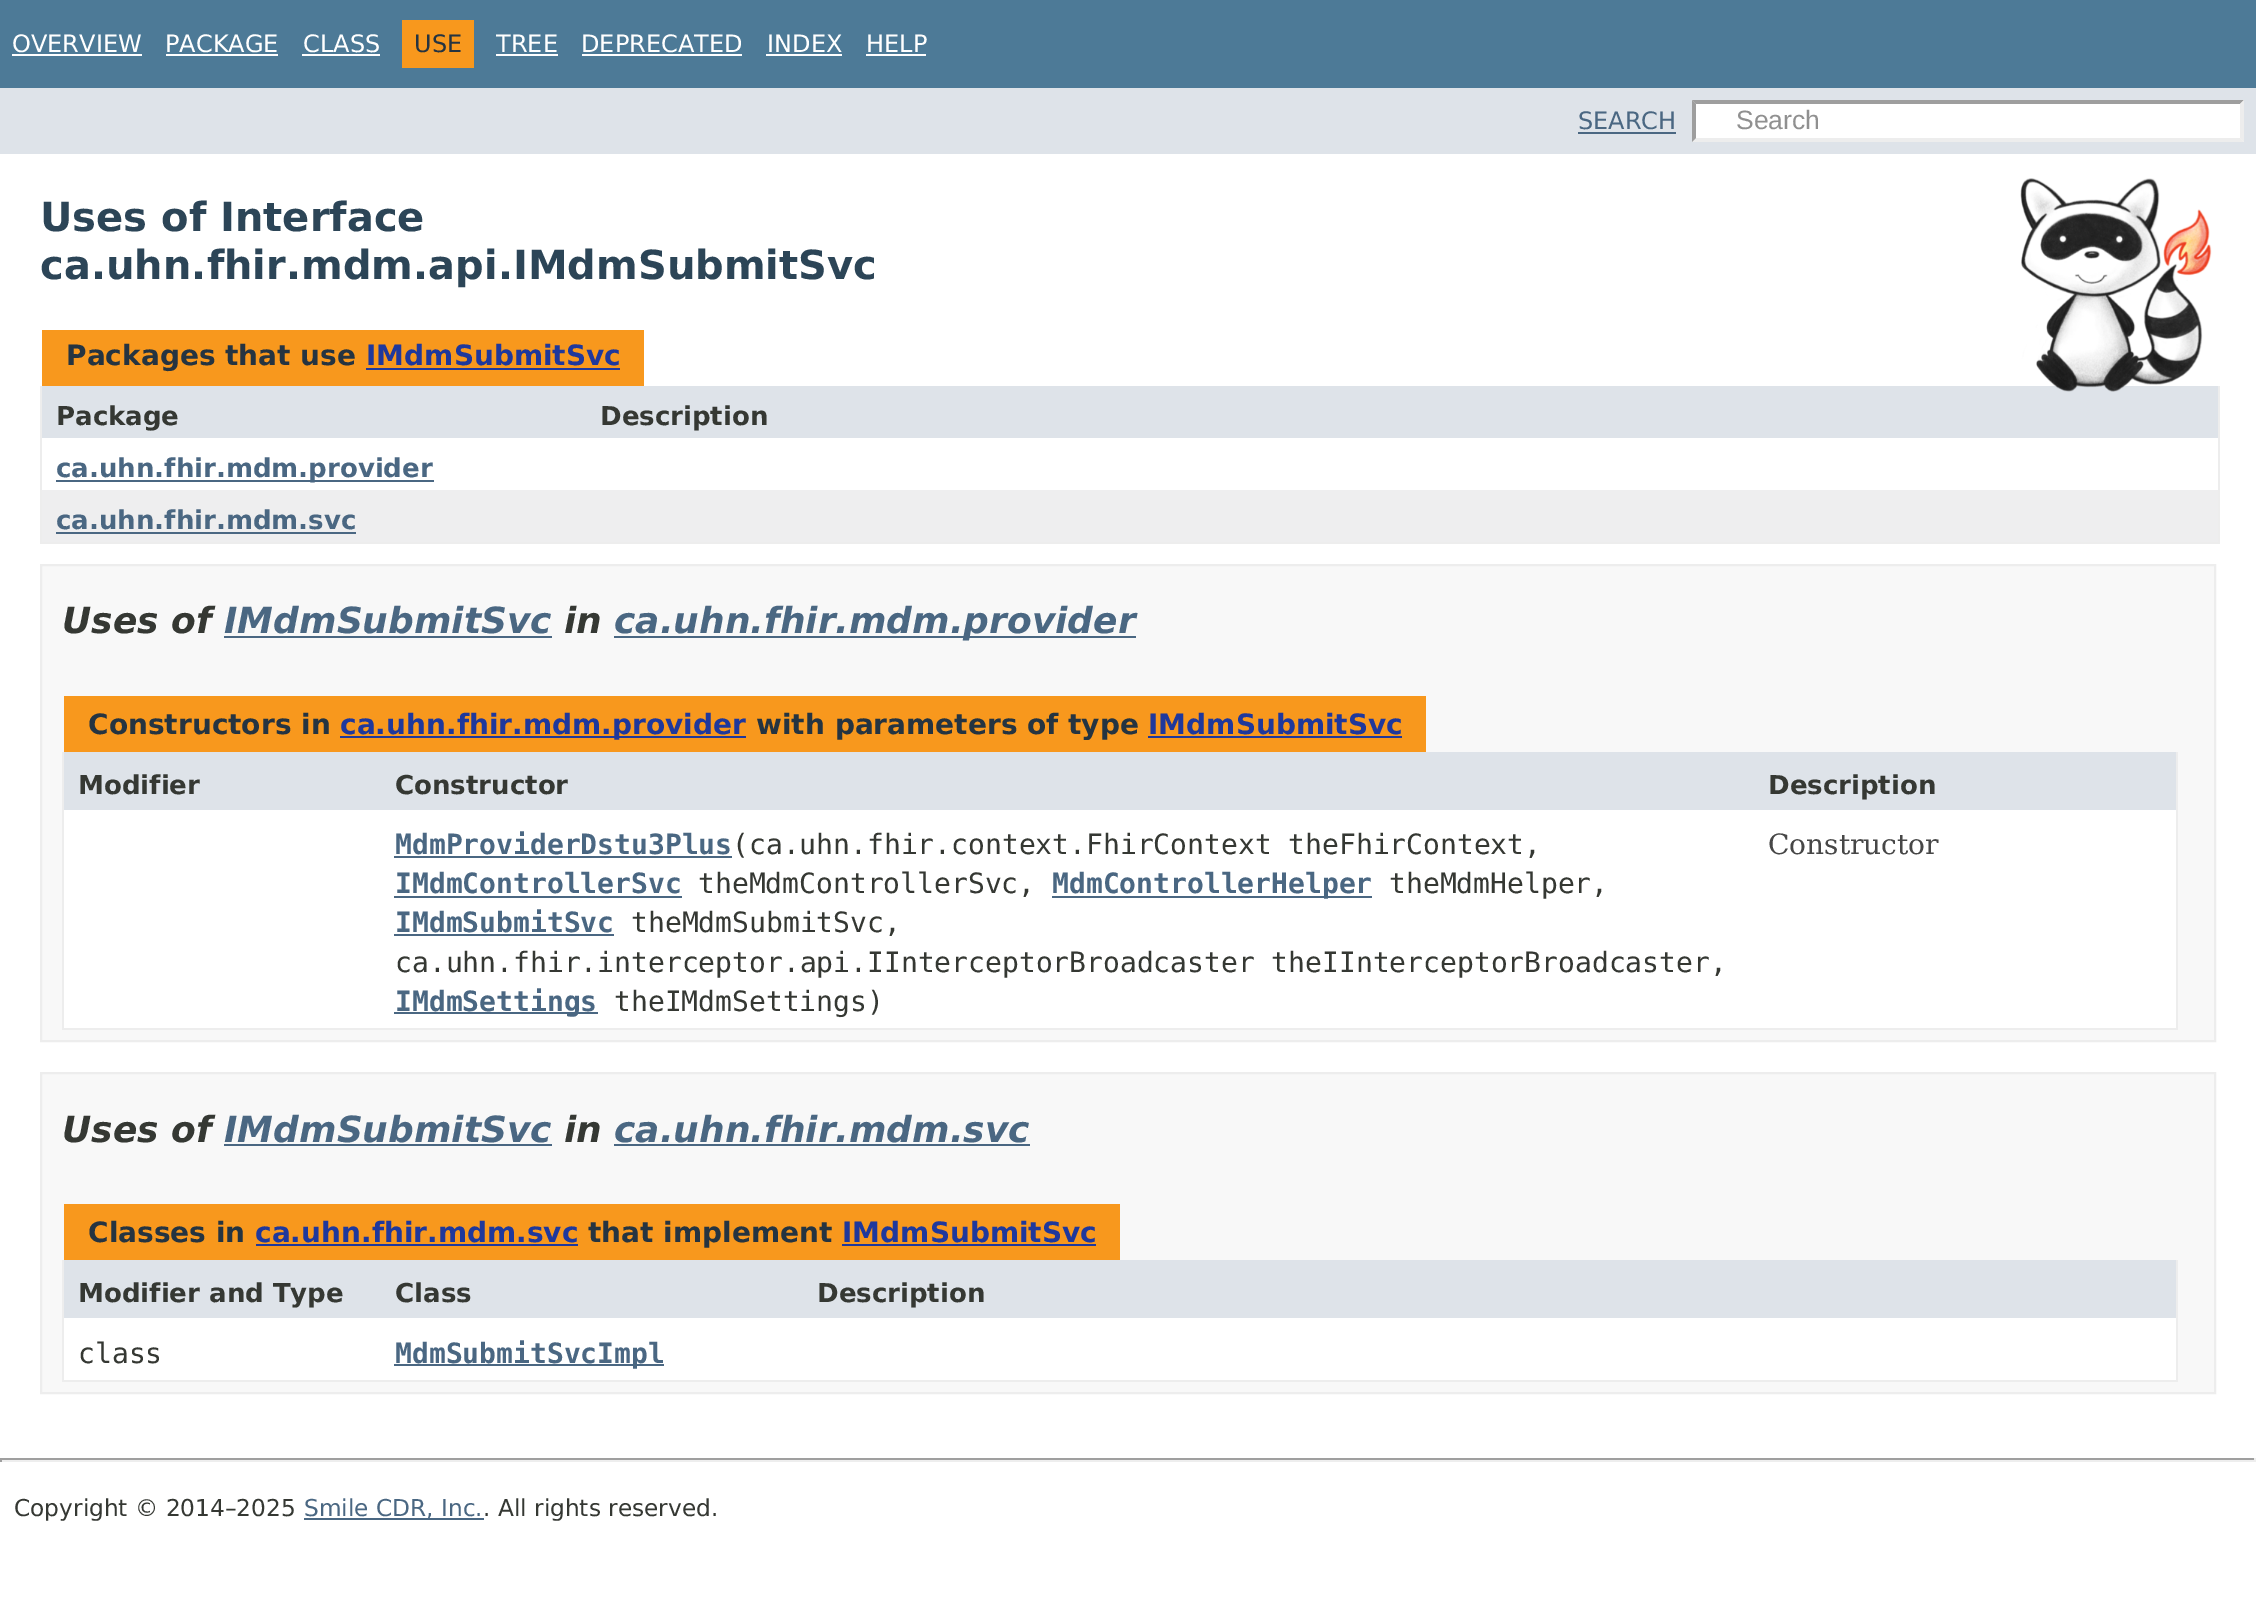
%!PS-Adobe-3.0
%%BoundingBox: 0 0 2256 1624
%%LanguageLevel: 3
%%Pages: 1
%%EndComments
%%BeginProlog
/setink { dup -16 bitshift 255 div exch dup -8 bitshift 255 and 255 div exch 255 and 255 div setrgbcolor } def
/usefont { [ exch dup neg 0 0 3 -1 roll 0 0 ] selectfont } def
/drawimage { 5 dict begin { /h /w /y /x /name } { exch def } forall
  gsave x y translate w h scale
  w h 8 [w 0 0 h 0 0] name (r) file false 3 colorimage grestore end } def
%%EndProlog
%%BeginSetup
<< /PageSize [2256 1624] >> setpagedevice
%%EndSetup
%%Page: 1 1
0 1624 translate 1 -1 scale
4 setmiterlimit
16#FFFFFF setink
0 0 2256 1624 rectfill
16#4D7A97 setink
0 0 2256 88 rectfill
/DejaVuSans-Regular 24 usefont
16#FFFFFF setink
12 52 moveto (OVERVIEW) show
12 54 130 2 rectfill
165 52 moveto (PACKAGE) show
166 54 112 2 rectfill
303 52 moveto (CLASS) show
302 54 78 2 rectfill
16#F8981D setink
402 20 72 48 rectfill
16#253441 setink
414 52 moveto (USE) show
16#FFFFFF setink
496 52 moveto (TREE) show
496 54 62 2 rectfill
581 52 moveto (DEPRECATED) show
582 54 160 2 rectfill
767 52 moveto (INDEX) show
766 54 76 2 rectfill
866 52 moveto (HELP) show
866 54 60 2 rectfill
16#DEE3E9 setink
0 88 2256 66 rectfill
16#4A6782 setink
1578 129 moveto (SEARCH) show
1578 132 98 2 rectfill
16#FFFFFF setink
1692 100 552 42 rectfill
16#9E9E9E setink
1692 100 moveto 2244 100 lineto 2240 104 lineto 1696 104 lineto closepath fill
16#EDEDED setink
2244 100 moveto 2244 142 lineto 2240 138 lineto 2240 104 lineto closepath fill
2244 142 moveto 1692 142 lineto 1696 138 lineto 2240 138 lineto closepath fill
16#9E9E9E setink
1692 142 moveto 1692 100 lineto 1696 104 lineto 1696 138 lineto closepath fill
/LiberationSans-Regular 26.5 usefont
16#909090 setink
1736 129 moveto (Search) show
/DejaVuSans-Bold 40 usefont
16#2C4557 setink
40 231 moveto (Uses of Interface) show
40 279 moveto (ca.uhn.fhir.mdm.api.IMdmSubmitSvc) show
16#DEE3E9 setink
42 386 2176 52 rectfill
(img1.raw) 2020 178 192 214 drawimage
16#F8981D setink
42 330 602 56 rectfill
/DejaVuSans-Bold 28 usefont
16#253441 setink
66 365 moveto (Packages that use) show
16#1F389C setink
366 365 moveto (IMdmSubmitSvc) show
[
    [366 368 254 2 16#1F389C]
    [2218 386 2 158 16#EDEDED]
    [40 542 2180 2 16#EDEDED]
    [40 386 2 158 16#EDEDED]
] { aload pop setink rectfill } forall
/DejaVuSans-Bold 26 usefont
16#353833 setink
56 425 moveto (Package) show
600 425 moveto (Description) show
16#4A6782 setink
56 480 378 2 rectfill
56 477 moveto (ca.uhn.fhir.mdm.provider) show
16#EEEEEF setink
42 490 2176 52 rectfill
16#4A6782 setink
56 529 moveto (ca.uhn.fhir.mdm.svc) show
56 532 300 2 rectfill
16#F8F8F8 setink
41 565 moveto 2215 565 lineto 2215 1041 lineto 41 1041 lineto closepath gsave fill grestore
16#EDEDED setink
2 setlinewidth
stroke
/DejaVuSans-BoldItalic 36 usefont
16#353833 setink
62 633 moveto (Uses of) show
16#4A6782 setink
224 633 moveto (IMdmSubmitSvc) show
224 636 328 2 rectfill
16#353833 setink
564 633 moveto (in) show
16#4A6782 setink
614 636 522 2 rectfill
614 633 moveto (ca.uhn.fhir.mdm.provider) show
16#F8981D setink
64 696 1362 56 rectfill
/DejaVuSans-Bold 28 usefont
16#253441 setink
88 734 moveto (Constructors in) show
16#1F389C setink
340 736 406 2 rectfill
340 734 moveto (ca.uhn.fhir.mdm.provider) show
16#253441 setink
756 734 moveto (with parameters of type) show
16#1F389C setink
1148 734 moveto (IMdmSubmitSvc) show
[
    [1148 736 254 2 16#1F389C]
    [2176 752 2 278 16#EDEDED]
    [62 1028 2116 2 16#EDEDED]
    [62 752 2 278 16#EDEDED]
    [64 752 2112 58 16#DEE3E9]
] { aload pop setink rectfill } forall
/DejaVuSans-Bold 26 usefont
16#353833 setink
[
    [(Modifier) 78 794]
    [(Constructor) 395 794]
    [(Description) 1768 794]
] { aload pop moveto show } forall
16#FFFFFF setink
64 810 2112 218 rectfill
/DejaVuSansMono-Bold 28 usefont
16#4A6782 setink
395 854 moveto (MdmProviderDstu3Plus) show
394 856 338 2 rectfill
/DejaVuSansMono-Regular 28 usefont
16#353833 setink
732 854 moveto (\(ca.uhn.fhir.context.FhirContext theFhirContext,) show
/DejaVuSansMono-Bold 28 usefont
16#4A6782 setink
395 893 moveto (IMdmControllerSvc) show
394 896 288 2 rectfill
/DejaVuSansMono-Regular 28 usefont
16#353833 setink
698 893 moveto (theMdmControllerSvc,) show
16#4A6782 setink
1052 896 320 2 rectfill
/DejaVuSansMono-Bold 28 usefont
1052 893 moveto (MdmControllerHelper) show
/DejaVuSansMono-Regular 28 usefont
16#353833 setink
1389 893 moveto (theMdmHelper,) show
/DejaVuSansMono-Bold 28 usefont
16#4A6782 setink
395 932 moveto (IMdmSubmitSvc) show
394 934 220 2 rectfill
/DejaVuSansMono-Regular 28 usefont
16#353833 setink
631 932 moveto (theMdmSubmitSvc,) show
395 972 moveto (ca.uhn.fhir.interceptor.api.IInterceptorBroadcaster theIInterceptorBroadcaster,) show
16#4A6782 setink
394 1012 204 2 rectfill
/DejaVuSansMono-Bold 28 usefont
395 1011 moveto (IMdmSettings) show
/DejaVuSansMono-Regular 28 usefont
16#353833 setink
614 1011 moveto (theIMdmSettings\)) show
/DejaVuSerif-Regular 28 usefont
16#474747 setink
1768 854 moveto (Constructor) show
16#F8F8F8 setink
41 1073 moveto 2215 1073 lineto 2215 1393 lineto 41 1393 lineto closepath gsave fill grestore
16#EDEDED setink
stroke
/DejaVuSans-BoldItalic 36 usefont
16#353833 setink
62 1142 moveto (Uses of) show
16#4A6782 setink
224 1142 moveto (IMdmSubmitSvc) show
224 1144 328 2 rectfill
16#353833 setink
564 1142 moveto (in) show
16#4A6782 setink
614 1142 moveto (ca.uhn.fhir.mdm.svc) show
614 1144 416 2 rectfill
16#F8981D setink
64 1204 1056 56 rectfill
/DejaVuSans-Bold 28 usefont
16#253441 setink
88 1242 moveto (Classes in) show
16#1F389C setink
255 1242 moveto (ca.uhn.fhir.mdm.svc) show
256 1244 322 2 rectfill
16#253441 setink
588 1242 moveto (that implement) show
16#1F389C setink
842 1242 moveto (IMdmSubmitSvc) show
[
    [842 1244 254 2 16#1F389C]
    [2176 1260 2 122 16#EDEDED]
    [62 1380 2116 2 16#EDEDED]
    [62 1260 2 122 16#EDEDED]
    [64 1260 2112 58 16#DEE3E9]
] { aload pop setink rectfill } forall
/DejaVuSans-Bold 26 usefont
16#353833 setink
[
    [(Modifier and Type) 78 1302]
    [(Class) 395 1302]
    [(Description) 817 1302]
] { aload pop moveto show } forall
16#FFFFFF setink
64 1318 2112 62 rectfill
/DejaVuSansMono-Regular 28 usefont
16#353833 setink
78 1363 moveto (class) show
16#4A6782 setink
394 1364 270 2 rectfill
/DejaVuSansMono-Bold 28 usefont
395 1363 moveto (MdmSubmitSvcImpl) show
[
    [0 1458 2256 2 16#9F9F9F]
    [2254 1458 2 4 16#EEEEEE]
    [0 1460 2256 2 16#EEEEEE]
    [0 1458 2 4 16#9F9F9F]
] { aload pop setink rectfill } forall
/DejaVuSans-Regular 23.25 usefont
16#353833 setink
14 1516 moveto (Copyright © 2014–2025) show
16#4A6782 setink
304 1518 180 2 rectfill
304 1516 moveto (Smile CDR, Inc.) show
16#353833 setink
483 1516 moveto (. All rights reserved.) show
showpage
%%EOF
